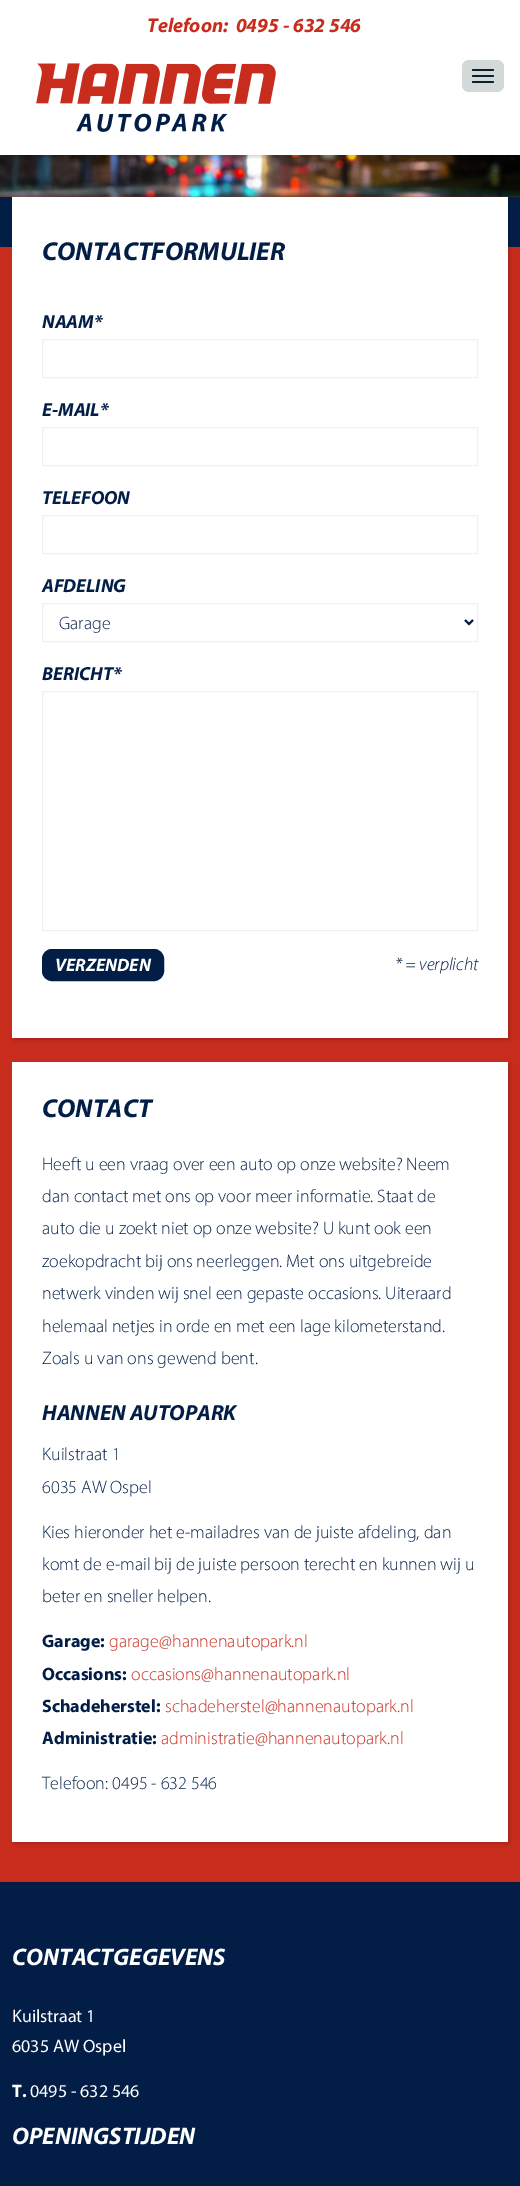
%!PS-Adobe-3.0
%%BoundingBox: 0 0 520 2186
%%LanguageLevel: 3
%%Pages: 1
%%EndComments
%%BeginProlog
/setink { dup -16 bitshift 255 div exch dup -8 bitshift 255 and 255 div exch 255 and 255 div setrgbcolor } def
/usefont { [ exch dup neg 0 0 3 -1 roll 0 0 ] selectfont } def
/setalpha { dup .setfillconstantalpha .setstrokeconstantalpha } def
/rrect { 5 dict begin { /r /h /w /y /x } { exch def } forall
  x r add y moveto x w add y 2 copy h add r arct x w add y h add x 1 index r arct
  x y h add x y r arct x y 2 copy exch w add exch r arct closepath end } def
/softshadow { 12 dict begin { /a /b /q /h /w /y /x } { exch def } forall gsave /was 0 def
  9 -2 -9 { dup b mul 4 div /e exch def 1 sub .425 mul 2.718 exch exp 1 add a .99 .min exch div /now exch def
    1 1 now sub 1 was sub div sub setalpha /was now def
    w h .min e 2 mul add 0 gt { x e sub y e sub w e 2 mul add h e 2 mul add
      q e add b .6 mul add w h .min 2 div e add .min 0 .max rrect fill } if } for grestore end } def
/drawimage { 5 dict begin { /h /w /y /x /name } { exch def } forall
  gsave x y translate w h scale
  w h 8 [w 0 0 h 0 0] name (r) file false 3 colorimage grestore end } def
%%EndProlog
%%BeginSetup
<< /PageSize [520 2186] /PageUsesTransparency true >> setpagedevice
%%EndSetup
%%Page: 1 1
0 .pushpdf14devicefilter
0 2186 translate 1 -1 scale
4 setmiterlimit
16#FFFFFF setink
0 0 520 2186 rectfill
16#C72C1D setink
0 196 520 1686 rectfill
(img2.raw) 0 155 520 42 drawimage
gsave
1 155 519 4 rectclip
16#000000 setink
2 2 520 155 0 1.5 0.15 softshadow
grestore
/Myriad-BoldItalic 20 usefont
147 32 moveto (Telefoon:  0495 - 632 546) show
16#D3D9D9 setink
462 60 42 32 7 rrect fill
16#09212F setink
472 69 22 2 1 rrect fill
472 75 22 2 1 rrect fill
472 81 22 2 1 rrect fill
(img1.raw) 36 63 240 69 drawimage
16#021E46 setink
0 197 520 50 rectfill
16#000000 setink
14 199 496 841 0 1.5 0.15 softshadow
16#FFFFFF setink
12 197 496 841 rectfill
/Myriad-BoldItalic 26 usefont
16#021E46 setink
42 260 moveto (CONTACTFORMULIER) show
/Myriad-BoldItalic 19 usefont
42 328 moveto (NAAM*) show
16#EBF1F8 setink
42.5 339.5 435 38 rectstroke
16#021E46 setink
42 416 moveto (E-MAIL*) show
16#EBF1F8 setink
42.5 427.5 435 38 rectstroke
16#021E46 setink
42 504 moveto (TELEFOON) show
16#EBF1F8 setink
42.5 515.5 435 38 rectstroke
16#021E46 setink
42 592 moveto (AFDELING) show
16#EBF1F8 setink
42.5 603.5 435 38 rectstroke
16#021E46 setink
2 setlinewidth
465 620 moveto 469 624 lineto 473 620 lineto stroke
/Myriad-Light 18 usefont
59 629 moveto (Garage) show
/Myriad-BoldItalic 19 usefont
42 680 moveto (BERICHT*) show
16#EBF1F8 setink
1 setlinewidth
42.5 691.5 435 239 rectstroke
16#021E46 setink
42.5 949.5 121 31 9.5 rrect gsave fill grestore
stroke
/Myriad-BoldItalic 18 usefont
16#FFFFFF setink
55 971 moveto (VERZENDEN) show
/Myriad-LightItalic 18 usefont
16#021E46 setink
395 970 moveto (* = verplicht) show
16#000000 setink
14 1064 496 780 0 1.5 0.15 softshadow
16#FFFFFF setink
12 1062 496 780 rectfill
/Myriad-BoldItalic 26 usefont
16#021E46 setink
42 1117 moveto (CONTACT) show
/Myriad-Light 18 usefont
[
    [(Heeft u een vraag over een auto op onze website? Neem) 42 1170]
    [(dan contact met ons op voor meer informatie. Staat de) 42 1202]
    [(auto die u zoekt niet op onze website? U kunt ook een) 42 1234]
    [(zoekopdracht bij ons neerleggen. Met ons uitgebreide) 42 1267]
    [(netwerk vinden wij snel een gepaste occasions. Uiteraard) 42 1299]
    [(helemaal netjes in orde en met een lage kilometerstand.) 42 1332]
    [(Zoals u van ons gewend bent.) 42 1364]
] { aload pop moveto show } forall
/Myriad-BoldItalic 22 usefont
42 1420 moveto (HANNEN AUTOPARK) show
/Myriad-Light 18 usefont
[
    [(Kuilstraat 1) 42 1460]
    [(6035 AW Ospel) 42 1493]
    [(Kies hieronder het e-mailadres van de juiste afdeling, dan) 42 1538]
    [(komt de e-mail bij de juiste persoon terecht en kunnen wij u) 42 1570]
    [(beter en sneller helpen.) 42 1602]
] { aload pop moveto show } forall
/Myriad-Bold 18 usefont
42 1647 moveto (Garage:) show
/Myriad-Light 18 usefont
16#C72C1D setink
109 1647 moveto (garage@hannenautopark.nl) show
/Myriad-Bold 18 usefont
16#021E46 setink
42 1680 moveto (Occasions:) show
/Myriad-Light 18 usefont
16#C72C1D setink
131 1680 moveto (occasions@hannenautopark.nl) show
/Myriad-Bold 18 usefont
16#021E46 setink
42 1712 moveto (Schadeherstel:) show
/Myriad-Light 18 usefont
16#C72C1D setink
165 1712 moveto (schadeherstel@hannenautopark.nl) show
/Myriad-Bold 18 usefont
16#021E46 setink
42 1744 moveto (Administratie:) show
/Myriad-Light 18 usefont
16#C72C1D setink
161 1744 moveto (administratie@hannenautopark.nl) show
16#021E46 setink
42 1789 moveto (Telefoon: 0495 - 632 546) show
0 1882 520 304 rectfill
/Myriad-BoldItalic 24 usefont
16#FFFFFF setink
12 1965 moveto (CONTACTGEGEVENS) show
/Myriad-Regular 18 usefont
12 2022 moveto (Kuilstraat 1) show
12 2052 moveto (6035 AW Ospel) show
/Myriad-Bold 18 usefont
12 2097 moveto (T.) show
/Myriad-Regular 18 usefont
30 2097 moveto (0495 - 632 546) show
/Myriad-BoldItalic 24 usefont
12 2144 moveto (OPENINGSTIJDEN) show
.poppdf14devicefilter showpage
%%EOF
